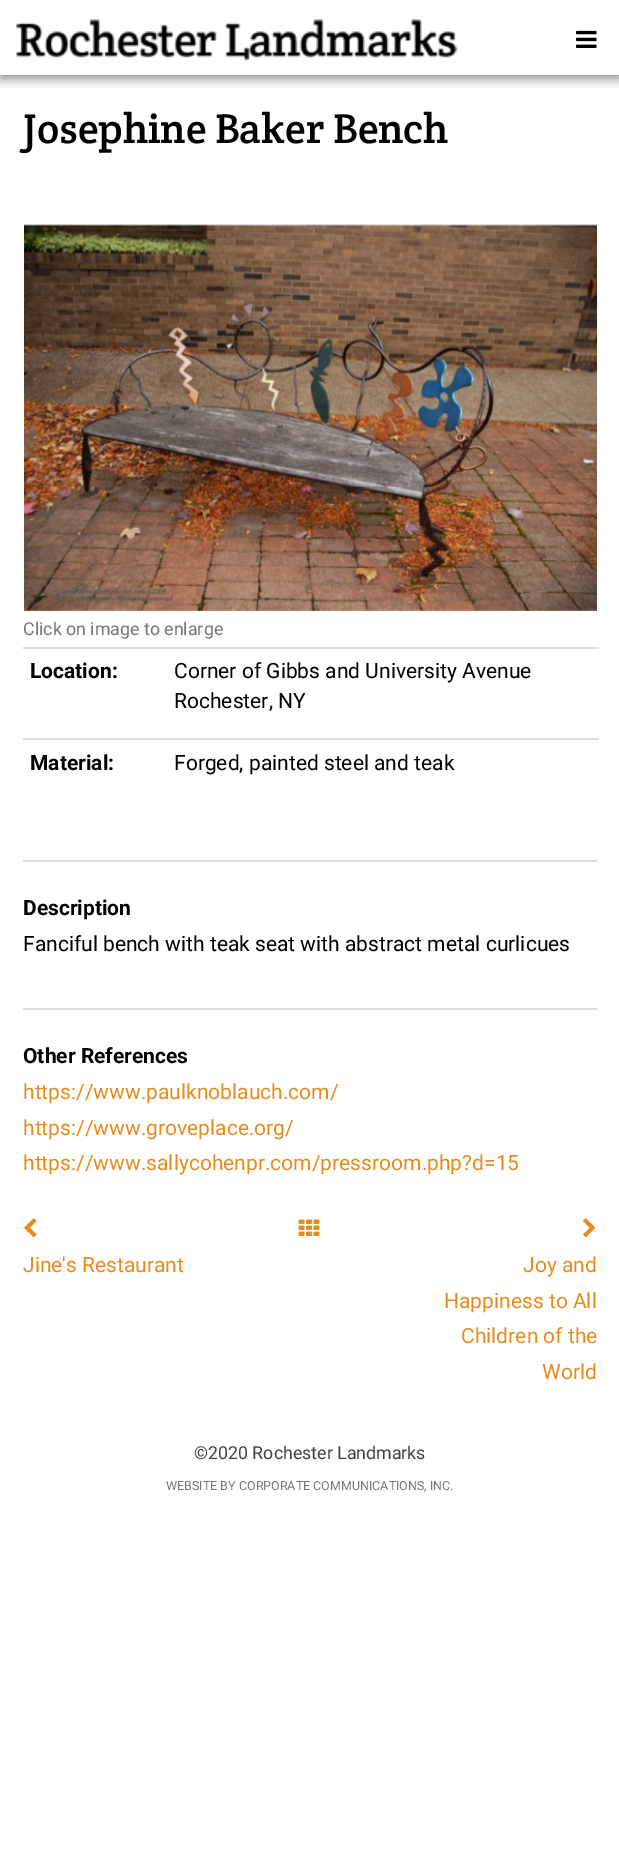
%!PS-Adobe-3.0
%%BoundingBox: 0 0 619 1855
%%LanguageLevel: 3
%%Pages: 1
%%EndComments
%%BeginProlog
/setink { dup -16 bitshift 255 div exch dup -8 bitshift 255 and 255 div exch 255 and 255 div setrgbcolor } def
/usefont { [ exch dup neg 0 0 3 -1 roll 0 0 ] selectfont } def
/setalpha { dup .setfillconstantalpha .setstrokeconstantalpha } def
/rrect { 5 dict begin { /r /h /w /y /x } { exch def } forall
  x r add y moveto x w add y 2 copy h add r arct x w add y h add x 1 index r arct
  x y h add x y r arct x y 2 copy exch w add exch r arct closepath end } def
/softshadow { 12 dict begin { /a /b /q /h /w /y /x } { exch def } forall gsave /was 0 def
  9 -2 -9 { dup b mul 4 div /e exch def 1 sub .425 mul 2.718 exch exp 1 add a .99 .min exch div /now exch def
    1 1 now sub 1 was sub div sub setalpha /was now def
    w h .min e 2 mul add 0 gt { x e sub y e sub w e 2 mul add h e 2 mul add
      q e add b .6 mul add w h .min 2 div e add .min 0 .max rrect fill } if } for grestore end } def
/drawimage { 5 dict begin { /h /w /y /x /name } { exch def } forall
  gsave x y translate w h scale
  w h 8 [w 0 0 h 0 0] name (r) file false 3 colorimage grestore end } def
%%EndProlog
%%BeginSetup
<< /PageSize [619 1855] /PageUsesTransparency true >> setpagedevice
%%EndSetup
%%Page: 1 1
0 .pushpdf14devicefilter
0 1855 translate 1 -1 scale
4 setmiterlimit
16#FFFFFF setink
0 0 619 1855 rectfill
gsave
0 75 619 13 rectclip
16#000000 setink
0 3 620 75 0 6 0.5 softshadow
grestore
(img1.raw) 16 19 442 42 drawimage
(img2.raw) 576 30 21 18 drawimage
/CreteRound-Regular 42 usefont
16#000000 setink
23 143 moveto (Josephine Baker Bench) show
(img3.raw) 24 224 573 387 drawimage
/Roboto-Regular 17.8 usefont
16#777777 setink
23 635 moveto (Click on image to enlarge) show
/Roboto-Bold 21 usefont
16#000000 setink
30 678 moveto (Location:) show
16#DDDDDD setink
23 647 576 2 rectfill
/Roboto-Regular 21 usefont
16#000000 setink
174 678 moveto (Corner of Gibbs and University Avenue) show
174 708 moveto (Rochester, NY) show
/Roboto-Bold 21 usefont
30 770 moveto (Material:) show
16#DDDDDD setink
23 738 576 2 rectfill
/Roboto-Regular 21 usefont
16#000000 setink
174 770 moveto (Forged, painted steel and teak) show
16#DDDDDD setink
23 860 574 2 rectfill
/Roboto-Bold 21 usefont
16#000000 setink
23 915 moveto (Description) show
/Roboto-Regular 21 usefont
23 951 moveto (Fanciful bench with teak seat with abstract metal curlicues) show
16#DDDDDD setink
23 1008 574 2 rectfill
/Roboto-Bold 21 usefont
16#000000 setink
23 1063 moveto (Other References) show
/Roboto-Regular 21 usefont
16#E78B1E setink
[
    [(https://www.paulknoblauch.com/) 23 1099]
    [(https://www.groveplace.org/) 23 1135]
    [(https://www.sallycohenpr.com/pressroom.php?d=15) 23 1170]
] { aload pop moveto show } forall
(img4.raw) 298 1219 22 17 drawimage
(img5.raw) 24 1218 13 20 drawimage
23 1272 moveto (Jine's Restaurant) show
(img6.raw) 583 1218 13 20 drawimage
[
    [(Joy and) 523 1272]
    [(Happiness to All) 444 1308]
    [(Children of the) 461 1343]
    [(World) 542 1379]
] { aload pop moveto show } forall
/Roboto-Regular 17.8 usefont
16#424242 setink
194 1459 moveto (©2020 Rochester Landmarks) show
/Roboto-Regular 12.5 usefont
16#777777 setink
166 1490 moveto (WEBSITE BY CORPORATE COMMUNICATIONS, INC.) show
.poppdf14devicefilter showpage
%%EOF
